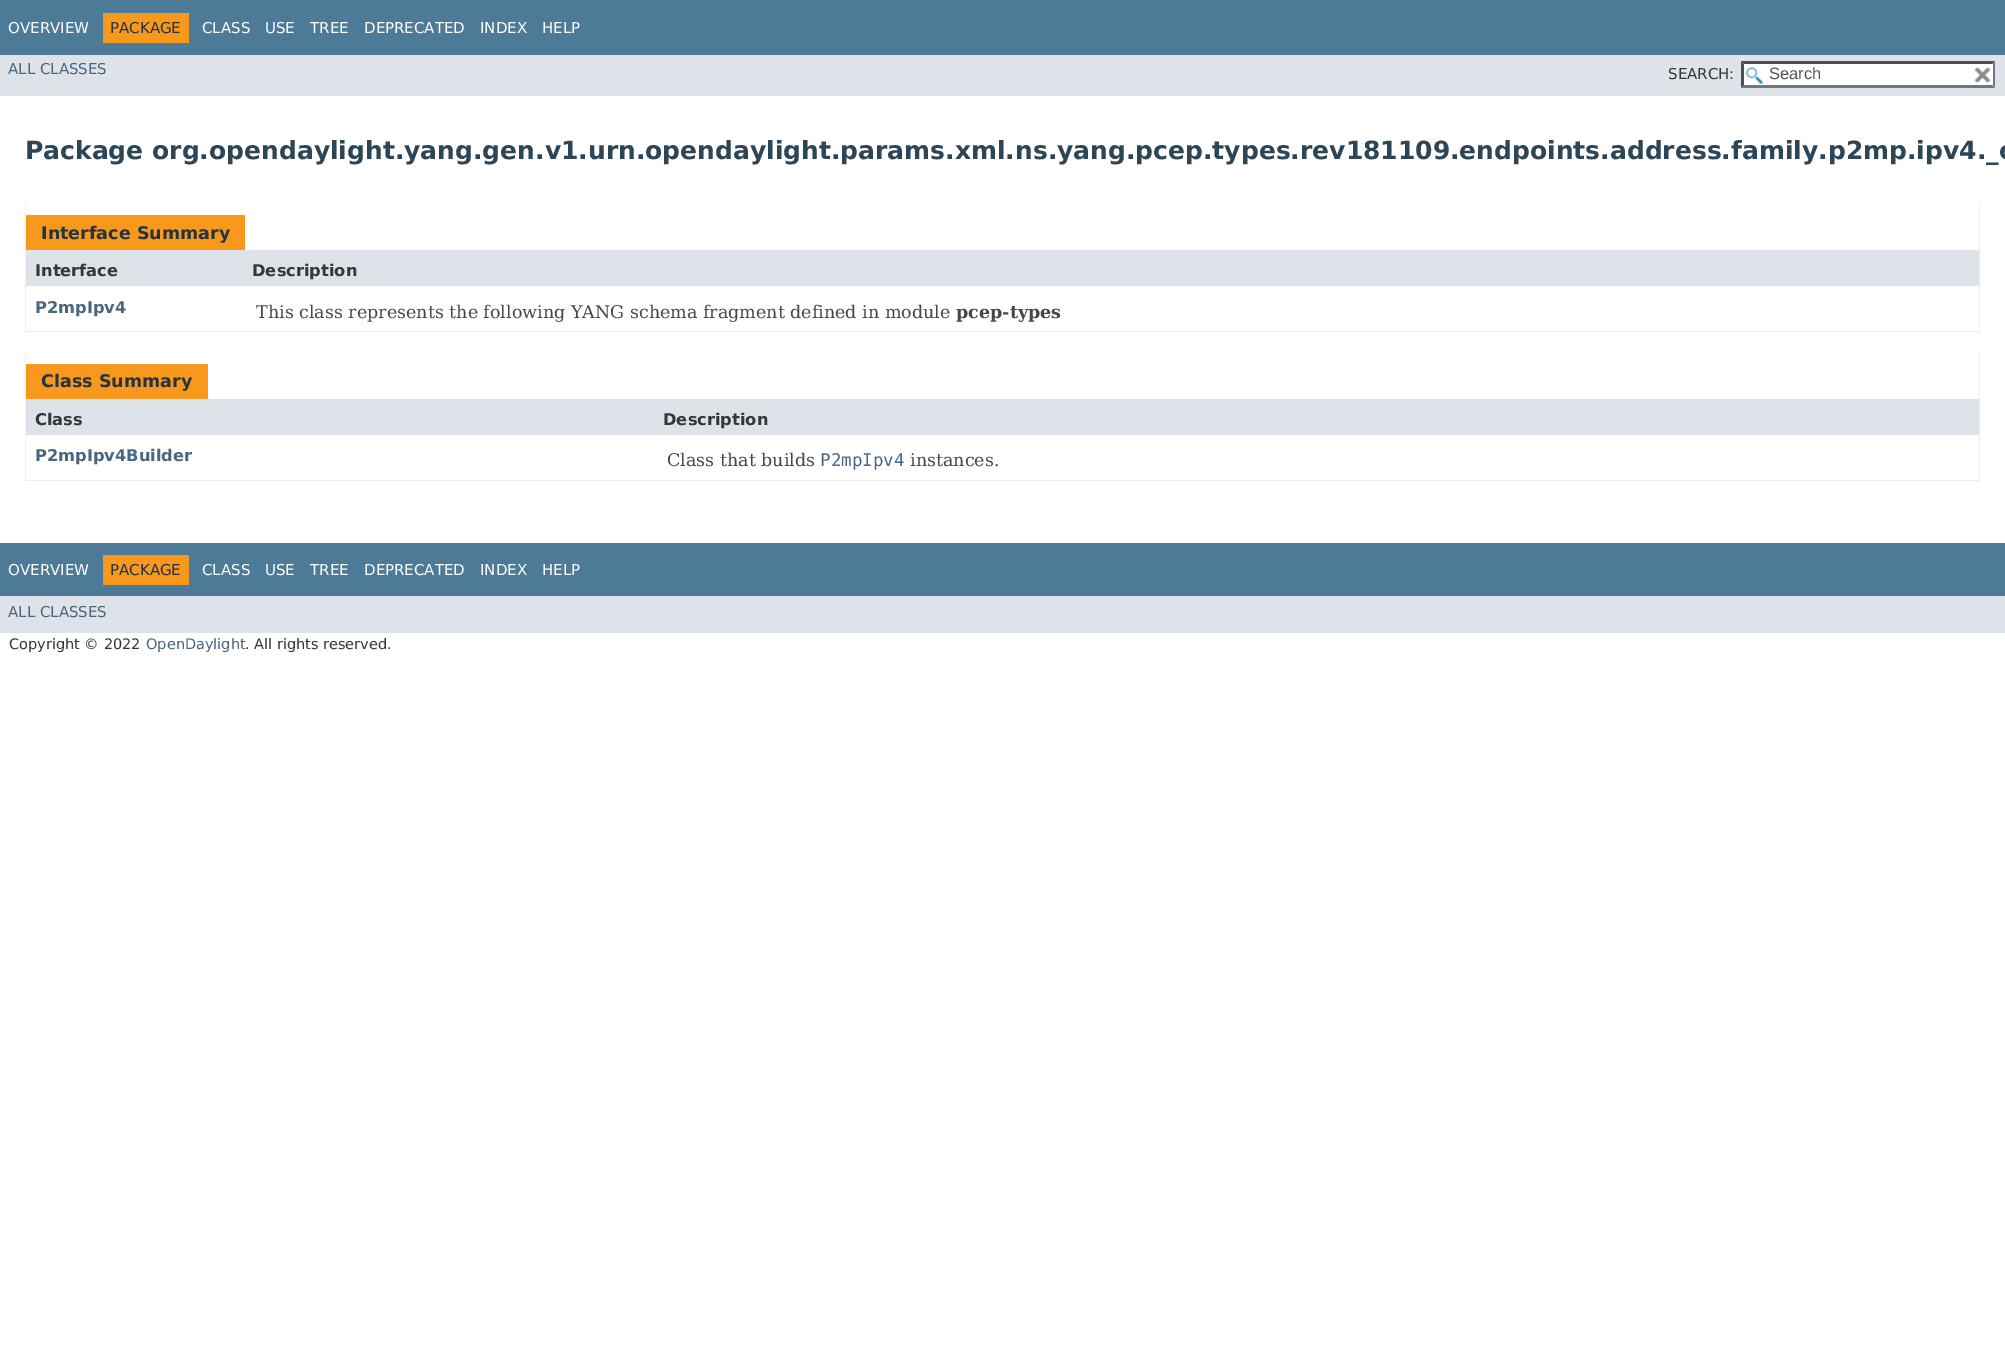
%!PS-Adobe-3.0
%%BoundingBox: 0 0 2005 1347
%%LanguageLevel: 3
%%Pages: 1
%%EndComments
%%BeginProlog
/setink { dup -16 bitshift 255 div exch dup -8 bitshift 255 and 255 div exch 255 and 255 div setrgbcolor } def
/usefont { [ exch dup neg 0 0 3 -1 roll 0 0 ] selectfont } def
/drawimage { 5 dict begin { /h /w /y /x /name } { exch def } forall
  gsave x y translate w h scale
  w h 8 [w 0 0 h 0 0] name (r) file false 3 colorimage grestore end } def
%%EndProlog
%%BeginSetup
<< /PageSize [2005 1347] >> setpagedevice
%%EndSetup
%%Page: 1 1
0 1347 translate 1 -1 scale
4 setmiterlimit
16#FFFFFF setink
0 0 2005 1347 rectfill
16#4D7A97 setink
0 0 2005 55 rectfill
/DejaVuSans-Regular 15 usefont
16#FFFFFF setink
8 33 moveto (OVERVIEW) show
16#F8981D setink
103 13 86 30 rectfill
16#253441 setink
110 33 moveto (PACKAGE) show
16#FFFFFF setink
[
    [(CLASS) 202 33]
    [(USE) 265 33]
    [(TREE) 310 33]
    [(DEPRECATED) 364 33]
    [(INDEX) 480 33]
    [(HELP) 542 33]
] { aload pop moveto show } forall
16#DEE3E9 setink
0 55 2005 41 rectfill
16#4A6782 setink
8 74 moveto (ALL CLASSES) show
16#353833 setink
1668 79 moveto (SEARCH:) show
16#FFFFFF setink
1741 61 254 27 rectfill
(img1.raw) 1746 67 17 17 drawimage
16#4F4F4F setink
1741 61 moveto 1995 61 lineto 1992 64 lineto 1744 64 lineto closepath fill
16#767676 setink
1995 61 moveto 1995 87.5 lineto 1992.5 85 lineto 1992.5 64 lineto closepath fill
1995 88 moveto 1741 88 lineto 1744 85 lineto 1992 85 lineto closepath fill
16#4F4F4F setink
1741 87.5 moveto 1741 61 lineto 1744 64 lineto 1744 85 lineto closepath fill
/LiberationSans-Regular 16.5 usefont
16#545454 setink
1769 79 moveto (Search) show
16#FFFFFF setink
1992 64 1 21 rectfill
(img2.raw) 1974 67 17 16 drawimage
/DejaVuSans-Bold 25 usefont
16#2C4557 setink
25 159 moveto (Package org.opendaylight.yang.gen.v1.urn.opendaylight.params.xml.ns.yang.pcep.types.rev181109.endpoints.address.family.p2mp.ipv4._c) show
[
    [1979 203 1 130 16#EEEEEE]
    [25 331 1955 1 16#EEEEEE]
    [25 203 1 130 16#EEEEEE]
    [26 215 219 35 16#F8981D]
] { aload pop setink rectfill } forall
/DejaVuSans-Bold 17.5 usefont
16#253441 setink
41 239 moveto (Interface Summary) show
16#DEE3E9 setink
26 250 1953 36 rectfill
/DejaVuSans-Bold 16.25 usefont
16#353833 setink
35 276 moveto (Interface) show
252 276 moveto (Description) show
16#4A6782 setink
35 313 moveto (P2mpIpv4) show
/DejaVuSerif-Regular 17.5 usefont
16#474747 setink
256 318 moveto (This class represents the following YANG schema fragment defined in module) show
/DejaVuSerif-Bold 17.5 usefont
956 318 moveto (pcep-types) show
[
    [1979 351 1 130 16#EEEEEE]
    [25 480 1955 1 16#EEEEEE]
    [25 351 1 130 16#EEEEEE]
    [26 364 182 35 16#F8981D]
] { aload pop setink rectfill } forall
/DejaVuSans-Bold 17.5 usefont
16#253441 setink
41 387 moveto (Class Summary) show
16#DEE3E9 setink
26 399 1953 36 rectfill
/DejaVuSans-Bold 16.25 usefont
16#353833 setink
35 425 moveto (Class) show
663 425 moveto (Description) show
16#4A6782 setink
35 461 moveto (P2mpIpv4Builder) show
/DejaVuSerif-Regular 17.5 usefont
16#474747 setink
667 466 moveto (Class that builds) show
/DejaVuSansMono-Regular 17.5 usefont
16#4A6782 setink
820 466 moveto (P2mpIpv4) show
/DejaVuSerif-Regular 17.5 usefont
16#474747 setink
910 466 moveto (instances.) show
16#4D7A97 setink
0 543 2005 53 rectfill
/DejaVuSans-Regular 15 usefont
16#FFFFFF setink
8 575 moveto (OVERVIEW) show
16#F8981D setink
103 555 86 30 rectfill
16#253441 setink
110 575 moveto (PACKAGE) show
16#FFFFFF setink
[
    [(CLASS) 202 575]
    [(USE) 265 575]
    [(TREE) 310 575]
    [(DEPRECATED) 364 575]
    [(INDEX) 480 575]
    [(HELP) 542 575]
] { aload pop moveto show } forall
16#DEE3E9 setink
0 596 2005 37 rectfill
16#4A6782 setink
8 617 moveto (ALL CLASSES) show
/DejaVuSans-Regular 14.5 usefont
16#353833 setink
9 649 moveto (Copyright © 2022) show
16#4A6782 setink
146 649 moveto (OpenDaylight) show
16#353833 setink
245 649 moveto (. All rights reserved.) show
showpage
%%EOF
